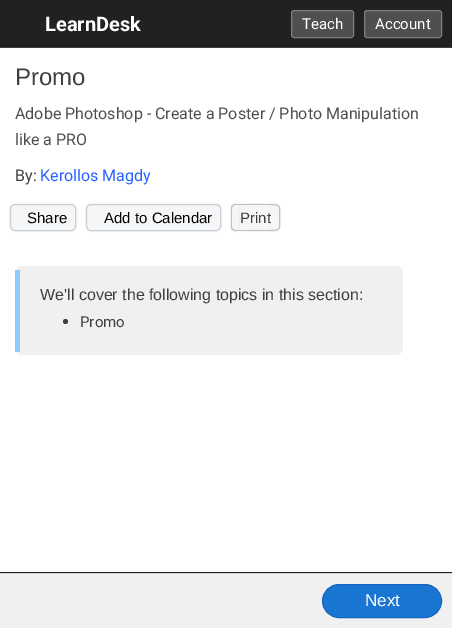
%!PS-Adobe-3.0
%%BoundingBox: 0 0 452 628
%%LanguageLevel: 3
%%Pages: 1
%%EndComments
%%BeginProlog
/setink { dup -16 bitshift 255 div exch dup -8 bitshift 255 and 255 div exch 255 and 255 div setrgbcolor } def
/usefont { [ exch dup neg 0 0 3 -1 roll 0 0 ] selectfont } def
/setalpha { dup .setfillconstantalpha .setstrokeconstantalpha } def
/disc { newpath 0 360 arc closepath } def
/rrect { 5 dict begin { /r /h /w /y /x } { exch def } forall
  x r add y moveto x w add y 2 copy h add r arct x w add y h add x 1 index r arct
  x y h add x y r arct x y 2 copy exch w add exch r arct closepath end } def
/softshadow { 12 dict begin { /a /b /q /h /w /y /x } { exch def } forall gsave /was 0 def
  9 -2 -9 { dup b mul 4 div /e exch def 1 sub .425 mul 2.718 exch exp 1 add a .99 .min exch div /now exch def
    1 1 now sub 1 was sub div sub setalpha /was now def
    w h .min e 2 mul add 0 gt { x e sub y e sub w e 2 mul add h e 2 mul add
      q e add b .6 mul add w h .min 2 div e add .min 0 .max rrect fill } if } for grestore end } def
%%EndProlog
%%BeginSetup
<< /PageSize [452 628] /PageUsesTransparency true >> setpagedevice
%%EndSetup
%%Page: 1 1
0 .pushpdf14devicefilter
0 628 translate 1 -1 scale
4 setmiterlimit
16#FFFFFF setink
0 0 452 628 rectfill
16#212121 setink
0 0 452 47 rectfill
16#3F3F3F setink
0 47 452 1 rectfill
/Roboto-Bold 20 usefont
16#FFFFFF setink
45 31 moveto (LearnDesk) show
16#4F4F4F setink
291.5 10.5 62 27 2.5 rrect gsave fill grestore
16#7F7F7F setink
stroke
/Roboto-Regular 15 usefont
16#FFFFFF setink
302 29 moveto (Teach) show
16#4F4F4F setink
364.5 10.5 77 27 2.5 rrect gsave fill grestore
16#7F7F7F setink
stroke
16#FFFFFF setink
375 29 moveto (Account) show
/LiberationSans-Regular 24 usefont
16#3F3F3F setink
15 85 moveto (Promo) show
/Roboto-Regular 16 usefont
16#4F4F4F setink
15 119 moveto (Adobe Photoshop - Create a Poster / Photo Manipulation) show
15 145 moveto (like a PRO) show
16#3F3F3F setink
15 181 moveto (By:) show
16#2962FF setink
40 181 moveto (Kerollos Magdy) show
16#DCDCD8 setink
10 204 66 27 5 1 1 softshadow
16#F5F6F7 setink
10.5 204.5 65 26 4.5 rrect gsave fill grestore
16#CCD0D5 setink
stroke
/LiberationSans-Regular 15 usefont
16#000000 setink
27 223 moveto (Share) show
16#DCDCD8 setink
86 204 135 27 5 1 1 softshadow
16#F5F6F7 setink
86.5 204.5 134 26 4.5 rrect gsave fill grestore
16#CCD0D5 setink
stroke
16#000000 setink
104 223 moveto (Add to Calendar) show
16#DCDCD8 setink
231 204 9 27 4.5 1 1 softshadow
16#F5F6F7 setink
235.5 204 moveto 240 204 lineto 240 231 lineto 235.5 231 lineto 233 231 231 229 231 226.5 curveto 231 208.5 lineto 231 206 233 204 235.5 204 curveto closepath fill
16#BFBFBF setink
235.5 204 moveto 240 204 lineto 240 231 lineto 235.5 231 lineto 233 231 231 229 231 226.5 curveto 231 208.5 lineto 231 206 233 204 235.5 204 curveto closepath 235.5 205 moveto 240 205 lineto 240 230 lineto 235.5 230 lineto 233.5 230 232 228.5 232 226.5 curveto 232 208.5 lineto 232 206.5 233.5 205 235.5 205 curveto closepath eofill
16#DCDCD8 setink
240 204 40 27 5 1 1 softshadow
16#F5F6F7 setink
240 204 moveto 275 204 lineto 278 204 280 206 280 209 curveto 280 226 lineto 280 229 278 231 275 231 curveto 240 231 lineto closepath fill
16#BFBFBF setink
240 204 moveto 269 204 lineto 282 204 280 206 280 218 curveto 280 229 282 231 269 231 curveto 240 231 lineto closepath 240 205 moveto 269 205 lineto 281 205 279 206 279 218 curveto 279 229 281 230 269 230 curveto 240 230 lineto closepath eofill
16#3F3F3F setink
240 223 moveto (Print) show
16#F0F0F0 setink
15 266 388 89 7 rrect fill
16#90CAF9 setink
15 270 5 82 rectfill
/LiberationSans-Regular 16 usefont
16#3F3F3F setink
40 300 moveto (We'll cover the following topics in this section:) show
65.5 321.5 2.5 disc fill
/Roboto-Regular 15 usefont
80 327 moveto (Promo) show
16#F0F0F0 setink
0 574 452 54 rectfill
16#CCD0D5 setink
0 573 452 1 rectfill
16#1976D2 setink
322.5 584.5 119 33 16.5 rrect gsave fill grestore
16#1565C0 setink
stroke
/LiberationSans-Regular 17 usefont
16#FFFFFF setink
365 606 moveto (Next) show
16#212121 setink
0 572 452 1 rectfill
.poppdf14devicefilter showpage
%%EOF
